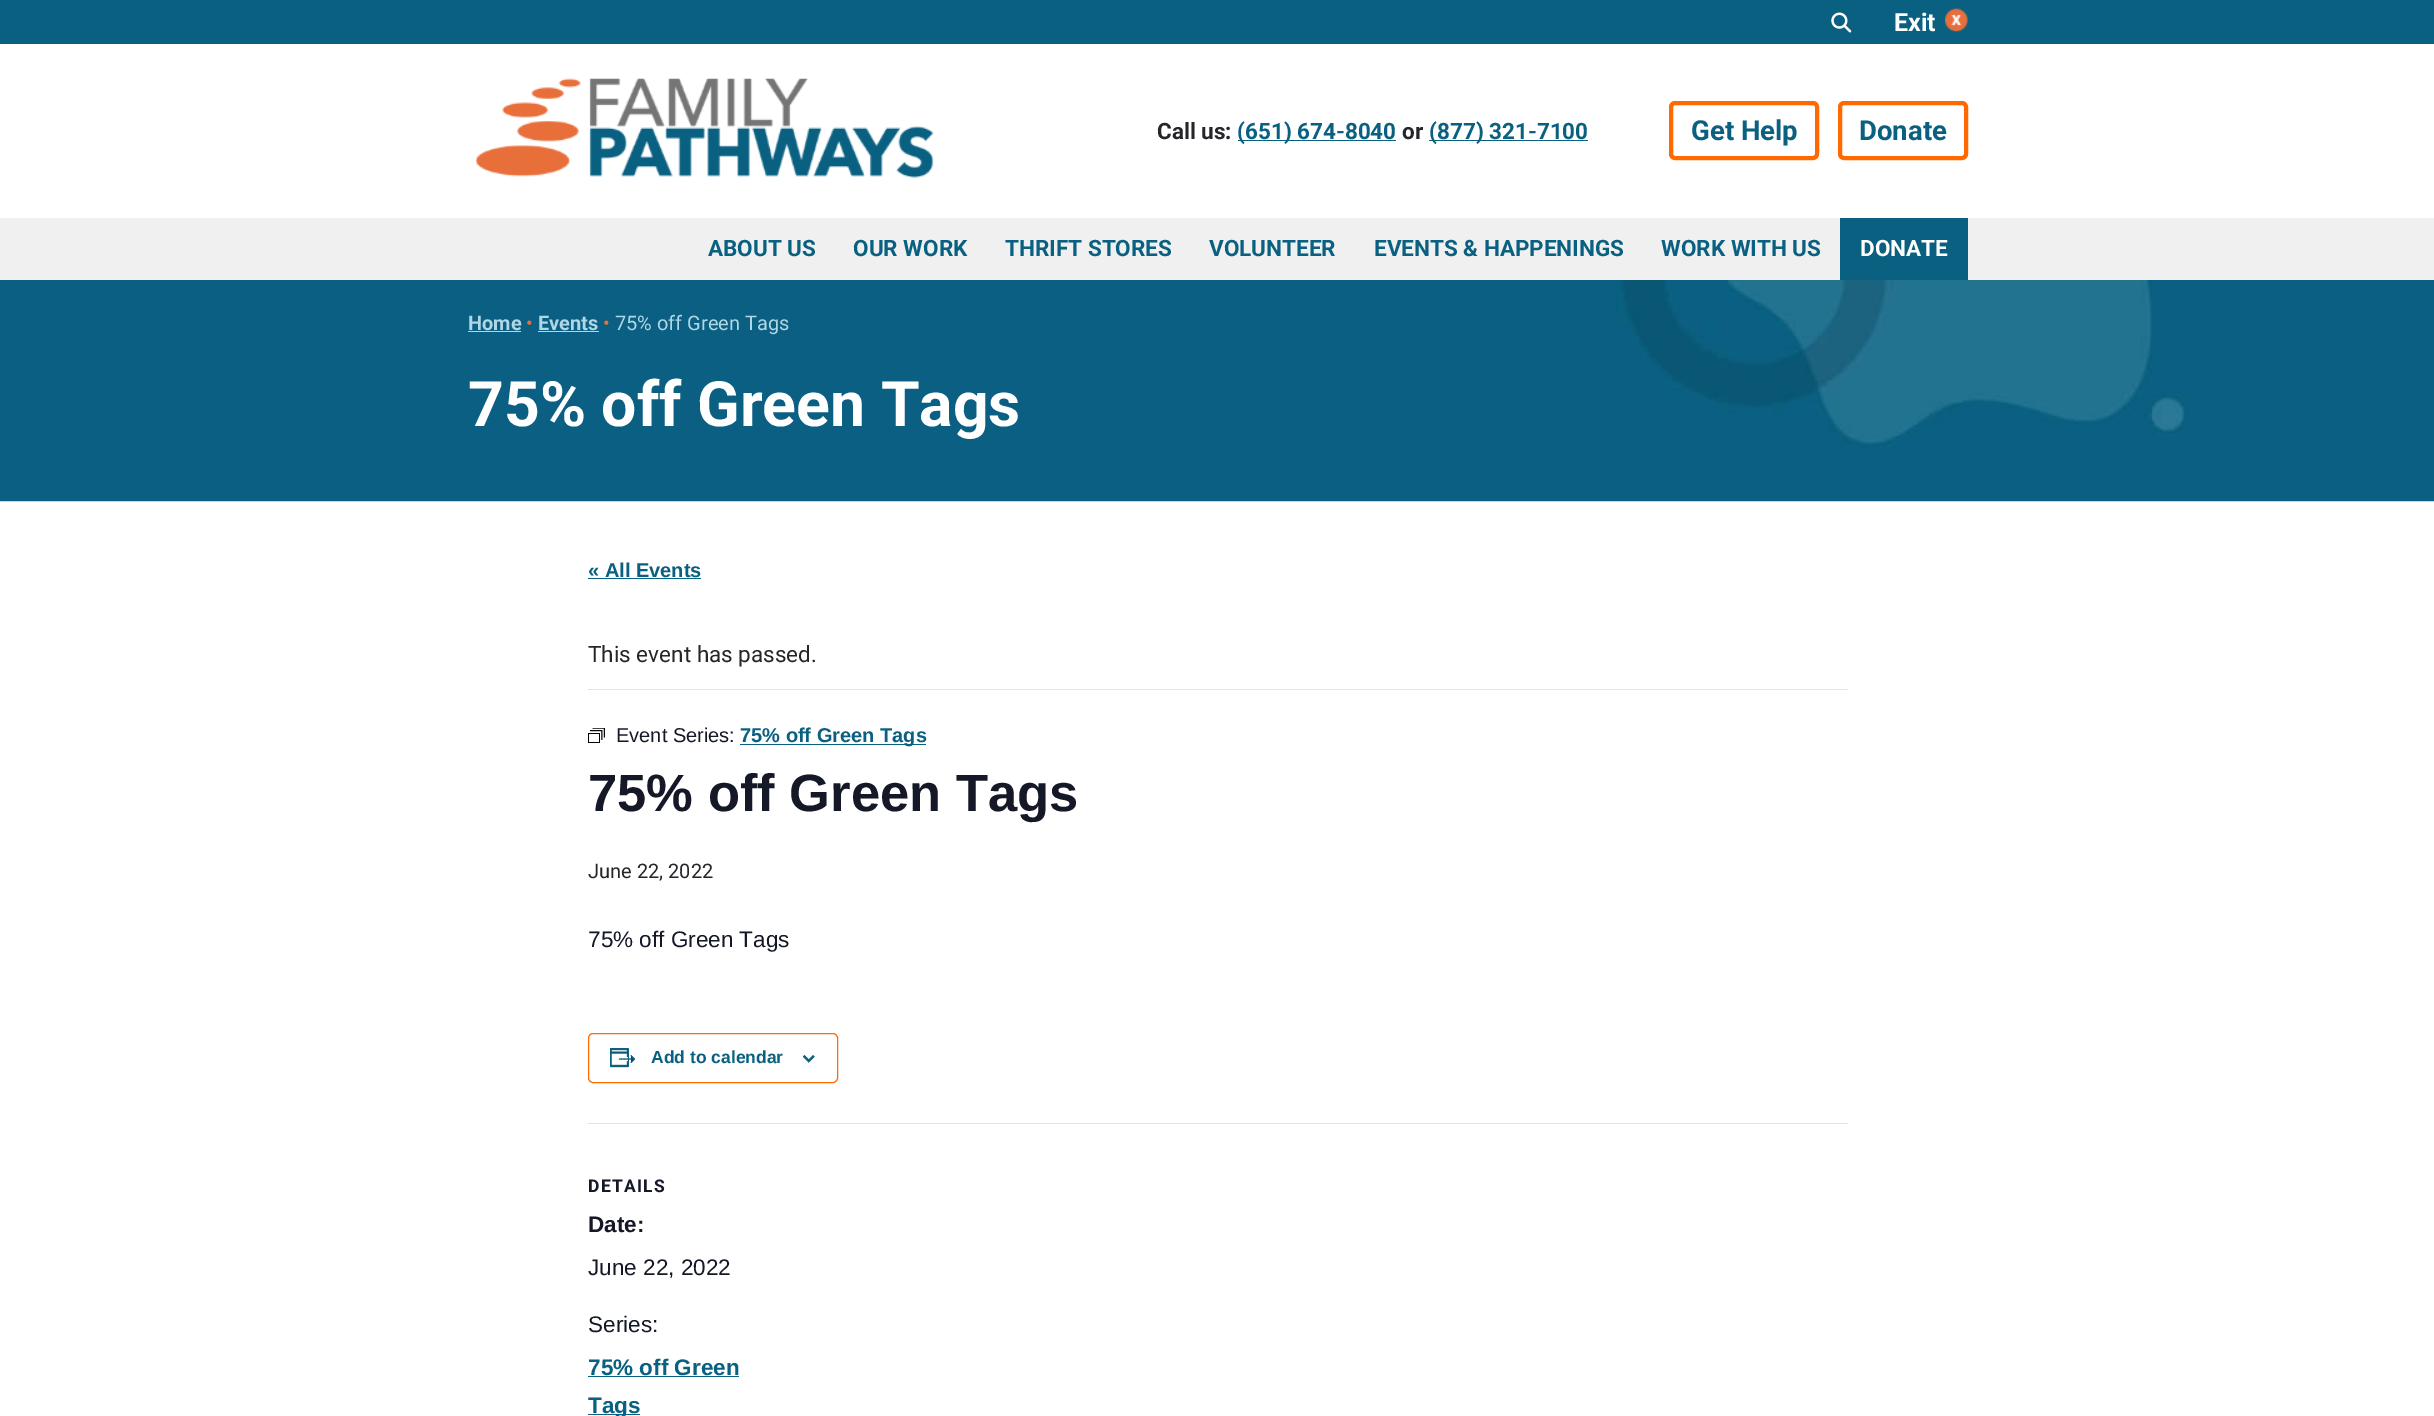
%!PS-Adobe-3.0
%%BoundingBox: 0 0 2434 1416
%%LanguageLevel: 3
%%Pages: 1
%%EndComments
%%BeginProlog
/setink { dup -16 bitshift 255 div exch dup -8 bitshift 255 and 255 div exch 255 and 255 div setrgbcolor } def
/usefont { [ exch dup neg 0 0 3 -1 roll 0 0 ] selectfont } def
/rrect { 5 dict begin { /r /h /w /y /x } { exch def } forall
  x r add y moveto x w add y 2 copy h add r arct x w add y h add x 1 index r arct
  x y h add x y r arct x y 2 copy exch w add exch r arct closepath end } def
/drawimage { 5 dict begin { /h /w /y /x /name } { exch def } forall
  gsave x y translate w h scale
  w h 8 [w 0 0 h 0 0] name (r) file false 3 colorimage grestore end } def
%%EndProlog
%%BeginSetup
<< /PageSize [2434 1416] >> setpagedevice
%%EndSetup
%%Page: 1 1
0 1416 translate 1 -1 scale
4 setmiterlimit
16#FFFFFF setink
0 0 2434 1416 rectfill
16#096081 setink
0 0 2434 44 rectfill
(img1.raw) 1831 12 21 21 drawimage
/Roboto-Bold 25 usefont
16#FFFFFF setink
1894 31 moveto (Exit) show
(img2.raw) 1945 8 23 24 drawimage
(img3.raw) 475 78 459 100 drawimage
/Roboto-Bold 22.5 usefont
16#242629 setink
1157 139 moveto (Call us:) show
16#096081 setink
1238 140 158 1 rectfill
1237 139 moveto (\(651\) 674-8040) show
16#242629 setink
1402 139 moveto (or) show
16#096081 setink
1429 140 159 1 rectfill
1429 139 moveto (\(877\) 321-7100) show
16#FF6900 setink
4 setlinewidth
1671 103 146 55 4 rrect stroke
/Roboto-Bold 27.5 usefont
16#096081 setink
1691 140 moveto (Get Help) show
16#FF6900 setink
1840 103 126 55 4 rrect stroke
16#096081 setink
1859 140 moveto (Donate) show
16#F1F0F1 setink
0 218 2434 62 rectfill
/Roboto-Bold 22.5 usefont
16#096081 setink
[
    [(ABOUT US) 708 256]
    [(OUR WORK) 853 256]
    [(THRIFT STORES) 1005 256]
    [(VOLUNTEER) 1209 256]
    [(EVENTS & HAPPENINGS) 1374 256]
    [(WORK WITH US) 1661 256]
] { aload pop moveto show } forall
1840 218 128 62 rectfill
16#FFFFFF setink
1860 256 moveto (DONATE) show
(img4.raw) 0 280 2434 222 drawimage
/Roboto-Bold 20 usefont
16#B0D7E6 setink
468 330 moveto (Home) show
468 331 53 1 rectfill
/Roboto-Regular 20 usefont
16#E86E3A setink
526 330 moveto (•) show
/Roboto-Bold 20 usefont
16#B0D7E6 setink
538 330 moveto (Events) show
538 331 61 1 rectfill
/Roboto-Regular 20 usefont
16#E86E3A setink
603 330 moveto (•) show
16#B0D7E6 setink
615 330 moveto (75% off Green Tags) show
/Roboto-Bold 62.5 usefont
16#FFFFFF setink
468 426 moveto (75% off Green Tags) show
/LiberationSans-Bold 20 usefont
16#096081 setink
588 577 moveto (« All Events) show
588 578 113 1 rectfill
16#E4E4E4 setink
588 689 1260 1 rectfill
/Roboto-Regular 22.5 usefont
16#242629 setink
588 662 moveto (This event has passed.) show
(img5.raw) 588 728 17 15 drawimage
/LiberationSans-Regular 20 usefont
16#141827 setink
616 742 moveto (Event Series:) show
16#096081 setink
740 744 186 1 rectfill
/LiberationSans-Bold 20 usefont
740 742 moveto (75% off Green Tags) show
/LiberationSans-Bold 52.5 usefont
16#141827 setink
588 811 moveto (75% off Green Tags) show
/Roboto-Regular 20 usefont
16#242629 setink
588 878 moveto (June 22, 2022) show
/LiberationSans-Regular 22.5 usefont
16#141827 setink
588 947 moveto (75% off Green Tags) show
16#FF6900 setink
1 setlinewidth
588.5 1033.5 249 49 4.5 rrect stroke
(img6.raw) 610 1048 26 20 drawimage
/LiberationSans-Bold 17.5 usefont
16#096081 setink
651 1063 moveto (Add to calendar) show
(img7.raw) 803 1055 12 8 drawimage
16#E4E4E4 setink
588 1123 1260 1 rectfill
/Roboto-Bold 17.5 usefont
16#141827 setink
588 1192 moveto 1.25 0 (DETAILS) ashow
/LiberationSans-Bold 22.5 usefont
588 1232 moveto (Date:) show
/LiberationSans-Regular 22.5 usefont
588 1275 moveto (June 22, 2022) show
588 1332 moveto (Series:) show
/LiberationSans-Bold 22.5 usefont
16#096081 setink
588 1375 moveto (75% off Green) show
588 1376 151 1 rectfill
588 1414 52 1 rectfill
gsave
588 924 1260 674 rectclip
588 1413 moveto (Tags) show
grestore
showpage
%%EOF
